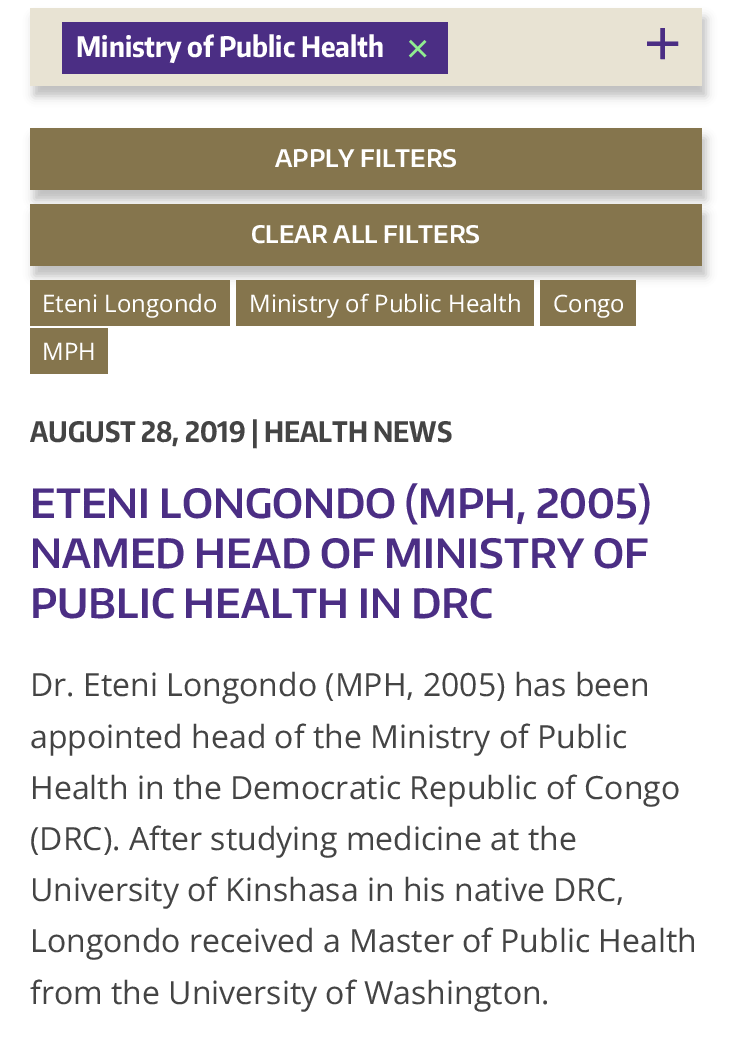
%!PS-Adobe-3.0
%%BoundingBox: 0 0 732 1050
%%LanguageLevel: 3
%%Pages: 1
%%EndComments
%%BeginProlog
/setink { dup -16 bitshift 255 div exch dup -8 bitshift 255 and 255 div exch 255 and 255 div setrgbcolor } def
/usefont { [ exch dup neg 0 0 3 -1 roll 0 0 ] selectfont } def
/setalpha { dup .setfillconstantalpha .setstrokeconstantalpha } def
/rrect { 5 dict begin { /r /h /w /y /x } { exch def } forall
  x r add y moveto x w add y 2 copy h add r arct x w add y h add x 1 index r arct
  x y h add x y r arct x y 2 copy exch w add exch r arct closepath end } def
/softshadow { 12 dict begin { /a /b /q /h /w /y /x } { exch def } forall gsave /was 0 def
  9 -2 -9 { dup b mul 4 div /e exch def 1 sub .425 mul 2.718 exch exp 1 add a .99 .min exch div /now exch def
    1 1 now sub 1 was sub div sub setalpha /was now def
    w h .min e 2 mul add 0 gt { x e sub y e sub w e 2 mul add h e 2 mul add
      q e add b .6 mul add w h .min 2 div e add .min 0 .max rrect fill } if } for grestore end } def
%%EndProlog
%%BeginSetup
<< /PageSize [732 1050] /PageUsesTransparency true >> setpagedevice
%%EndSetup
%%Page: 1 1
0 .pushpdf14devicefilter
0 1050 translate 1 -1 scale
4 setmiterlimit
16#FFFFFF setink
0 0 732 1050 rectfill
16#000000 setink
34 18 672 78 0 5 0.25 softshadow
16#E8E3D3 setink
30 8 672 78 rectfill
16#4B2E84 setink
62 22 386 52 rectfill
/EncodeSansCondensed-Bold 28 usefont
16#FFFFFF setink
76 57 moveto (Ministry of Public Health) show
/LiberationSans-Regular 40 usefont
16#90EE90 setink
406 62 moveto (×) show
/LiberationSans-Regular 64 usefont
16#4B2E84 setink
644 65 moveto (+) show
16#000000 setink
34 138 672 62 0 5 0.25 softshadow
16#85754D setink
30 128 672 62 rectfill
/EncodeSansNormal-SemiBold 24 usefont
16#FFFFFF setink
275 167 moveto (APPLY FILTERS) show
16#000000 setink
34 214 672 62 0 5 0.25 softshadow
16#85754D setink
30 204 672 62 rectfill
16#FFFFFF setink
251 243 moveto (CLEAR ALL FILTERS) show
16#85754D setink
30 280 200 46 rectfill
/OpenSans-Regular 24 usefont
16#FFFFFF setink
42 312 moveto (Eteni Longondo) show
16#85754D setink
236 280 298 46 rectfill
16#FFFFFF setink
249 312 moveto (Ministry of Public Health) show
16#85754D setink
540 280 96 46 rectfill
16#FFFFFF setink
553 312 moveto (Congo) show
16#85754D setink
30 328 78 46 rectfill
16#FFFFFF setink
42 360 moveto (MPH) show
/EncodeSansCondensed-Bold 28 usefont
16#444444 setink
30 442 moveto (AUGUST 28, 2019 | HEALTH NEWS) show
/EncodeSansNormal-SemiBold 40 usefont
16#4B2E84 setink
[
    [(ETENI LONGONDO \(MPH, 2005\)) 30 518]
    [(NAMED HEAD OF MINISTRY OF) 30 568]
    [(PUBLIC HEALTH IN DRC) 30 618]
] { aload pop moveto show } forall
/OpenSans-Regular 32 usefont
16#444444 setink
[
    [(Dr. Eteni Longondo \(MPH, 2005\) has been) 30 696]
    [(appointed head of the Ministry of Public) 30 748]
    [(Health in the Democratic Republic of Congo) 30 799]
    [(\(DRC\). After studying medicine at the) 30 850]
    [(University of Kinshasa in his native DRC,) 30 901]
    [(Longondo received a Master of Public Health) 30 952]
    [(from the University of Washington.) 30 1004]
] { aload pop moveto show } forall
.poppdf14devicefilter showpage
%%EOF
